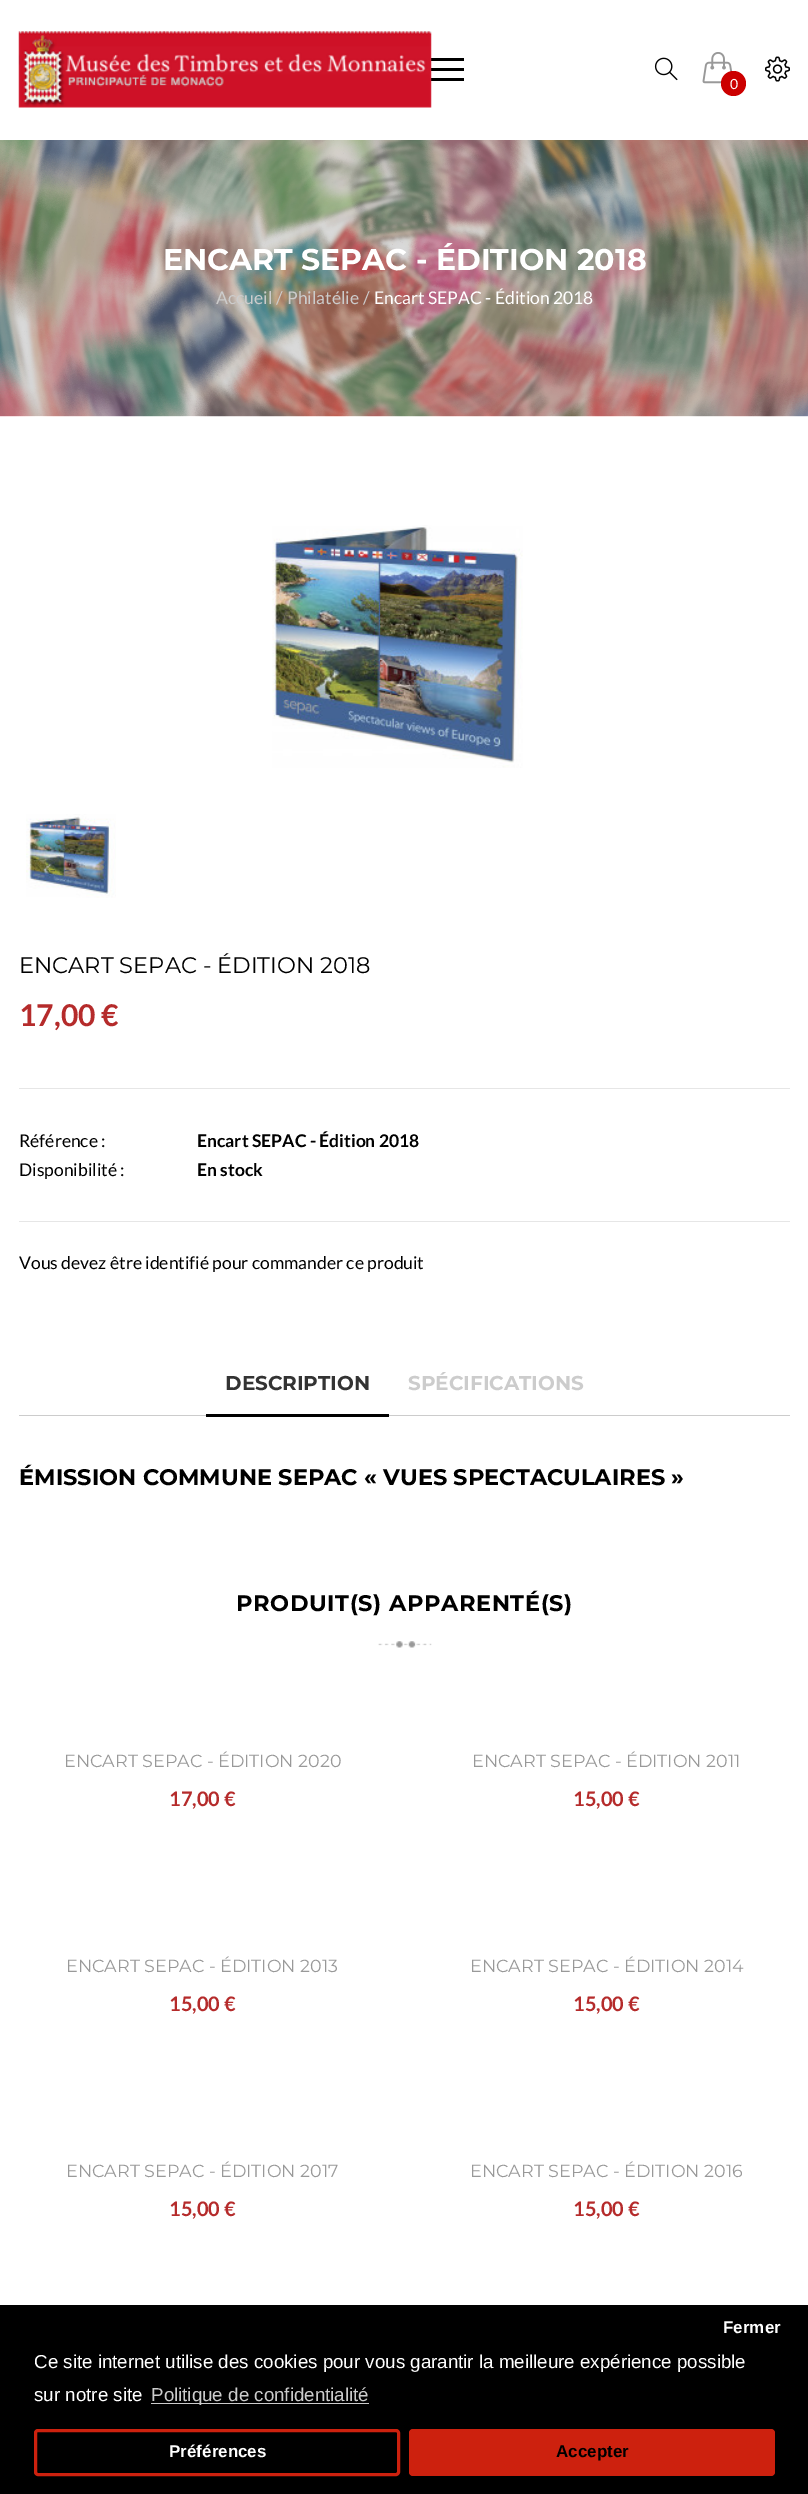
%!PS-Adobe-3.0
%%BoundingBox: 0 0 808 2494
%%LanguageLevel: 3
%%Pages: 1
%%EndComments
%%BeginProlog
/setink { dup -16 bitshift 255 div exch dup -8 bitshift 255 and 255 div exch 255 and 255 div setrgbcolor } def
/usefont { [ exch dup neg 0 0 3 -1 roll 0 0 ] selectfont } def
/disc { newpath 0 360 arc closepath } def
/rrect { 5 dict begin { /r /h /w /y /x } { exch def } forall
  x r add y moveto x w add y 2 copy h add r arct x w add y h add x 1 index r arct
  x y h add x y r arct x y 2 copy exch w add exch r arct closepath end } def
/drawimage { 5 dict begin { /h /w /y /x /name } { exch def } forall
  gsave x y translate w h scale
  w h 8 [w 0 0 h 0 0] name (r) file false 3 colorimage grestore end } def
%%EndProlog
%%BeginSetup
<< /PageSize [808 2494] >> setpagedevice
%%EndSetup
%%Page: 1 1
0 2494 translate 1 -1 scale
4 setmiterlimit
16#FFFFFF setink
0 0 808 2494 rectfill
[
    [426 58 38 3 16#000000]
    [426 68 38 3 16#000000]
    [426 78 38 3 16#000000]
] { aload pop setink rectfill } forall
(img1.raw) 18 31 414 77 drawimage
(img2.raw) 654 57 24 24 drawimage
(img3.raw) 765 56 25 26 drawimage
(img4.raw) 702 52 31 32 drawimage
16#CC0000 setink
733.5 83.5 12.5 disc fill
/Lato-Regular 14 usefont
16#FFFFFF setink
730 89 moveto (0) show
(img5.raw) 0 140 808 277 drawimage
/Montserrat-Bold 30 usefont
163 270 moveto (ENCART SEPAC - ÉDITION 2018) show
/Lato-Regular 17.5 usefont
16#CCCCCC setink
[
    [(Accueil) 216 304]
    [(/) 276 304]
    [(Philatélie) 287 304]
    [(/) 363 304]
] { aload pop moveto show } forall
16#FFFFFF setink
374 304 moveto (Encart SEPAC - Édition 2018) show
(img6.raw) 272 525 251 243 drawimage
(img7.raw) 26 814 90 84 drawimage
/Montserrat-Regular 22.5 usefont
16#000000 setink
19 973 moveto (ENCART SEPAC - ÉDITION 2018) show
16#E6E6E6 setink
19 1088 771 1 rectfill
/Lato-Bold 30 usefont
16#B52B2B setink
19 1026 moveto (17,00 €) show
16#E6E6E6 setink
19 1221 771 1 rectfill
/Lato-Regular 17.5 usefont
16#000000 setink
19 1147 moveto (Référence :) show
/Lato-Bold 17.5 usefont
197 1147 moveto (Encart SEPAC - Édition 2018) show
/Lato-Regular 17.5 usefont
19 1176 moveto (Disponibilité :) show
/Lato-Bold 17.5 usefont
197 1176 moveto (En stock) show
/Lato-Regular 17.5 usefont
19 1269 moveto (Vous devez être identifié pour commander ce produit) show
16#CCCCCC setink
19 1415 771 1 rectfill
/Montserrat-Bold 20 usefont
16#333333 setink
225 1390 moveto (DESCRIPTION) show
16#000000 setink
206 1414 183 3 rectfill
16#CCCCCC setink
408 1390 moveto (SPÉCIFICATIONS) show
/Montserrat-Bold 22.5 usefont
16#000000 setink
19 1485 moveto (ÉMISSION COMMUNE SEPAC « VUES SPECTACULAIRES ») show
(img8.raw) 378 1641 54 7 drawimage
236 1611 moveto 0.6 0 (PRODUIT\(S\) APPARENTÉ\(S\)) ashow
/Montserrat-Regular 17.5 usefont
16#999999 setink
64 1767 moveto (ENCART SEPAC - ÉDITION 2020) show
/Lato-Bold 20 usefont
16#B52B2B setink
169 1806 moveto (17,00 €) show
/Montserrat-Regular 17.5 usefont
16#999999 setink
472 1767 moveto (ENCART SEPAC - ÉDITION 2011) show
/Lato-Bold 20 usefont
16#B52B2B setink
573 1806 moveto (15,00 €) show
/Montserrat-Regular 17.5 usefont
16#999999 setink
66 1972 moveto (ENCART SEPAC - ÉDITION 2013) show
/Lato-Bold 20 usefont
16#B52B2B setink
169 2011 moveto (15,00 €) show
/Montserrat-Regular 17.5 usefont
16#999999 setink
470 1972 moveto (ENCART SEPAC - ÉDITION 2014) show
/Lato-Bold 20 usefont
16#B52B2B setink
573 2011 moveto (15,00 €) show
/Montserrat-Regular 17.5 usefont
16#999999 setink
66 2177 moveto (ENCART SEPAC - ÉDITION 2017) show
/Lato-Bold 20 usefont
16#B52B2B setink
169 2216 moveto (15,00 €) show
/Montserrat-Regular 17.5 usefont
16#999999 setink
470 2177 moveto (ENCART SEPAC - ÉDITION 2016) show
/Lato-Bold 20 usefont
16#B52B2B setink
573 2216 moveto (15,00 €) show
16#000000 setink
0 2305 808 189 rectfill
/LiberationSans-Bold 17 usefont
16#FFFFFF setink
723 2333 moveto (Fermer) show
16#CD210E setink
3 setlinewidth
35.5 2430.5 363 44 2.5 rrect stroke
16#FFFFFF setink
169 2457 moveto (Préférences) show
16#CD210E setink
409 2429 366 47 4 rrect fill
16#000000 setink
556 2457 moveto (Accepter) show
/LiberationSans-Regular 18.75 usefont
16#FFFFFF setink
34 2368 moveto (Ce site internet utilise des cookies pour vous garantir la meilleure expérience possible) show
34 2401 moveto (sur notre site) show
16#CCCCCC setink
151 2403 218 1 rectfill
151 2401 moveto (Politique de confidentialité) show
showpage
%%EOF
